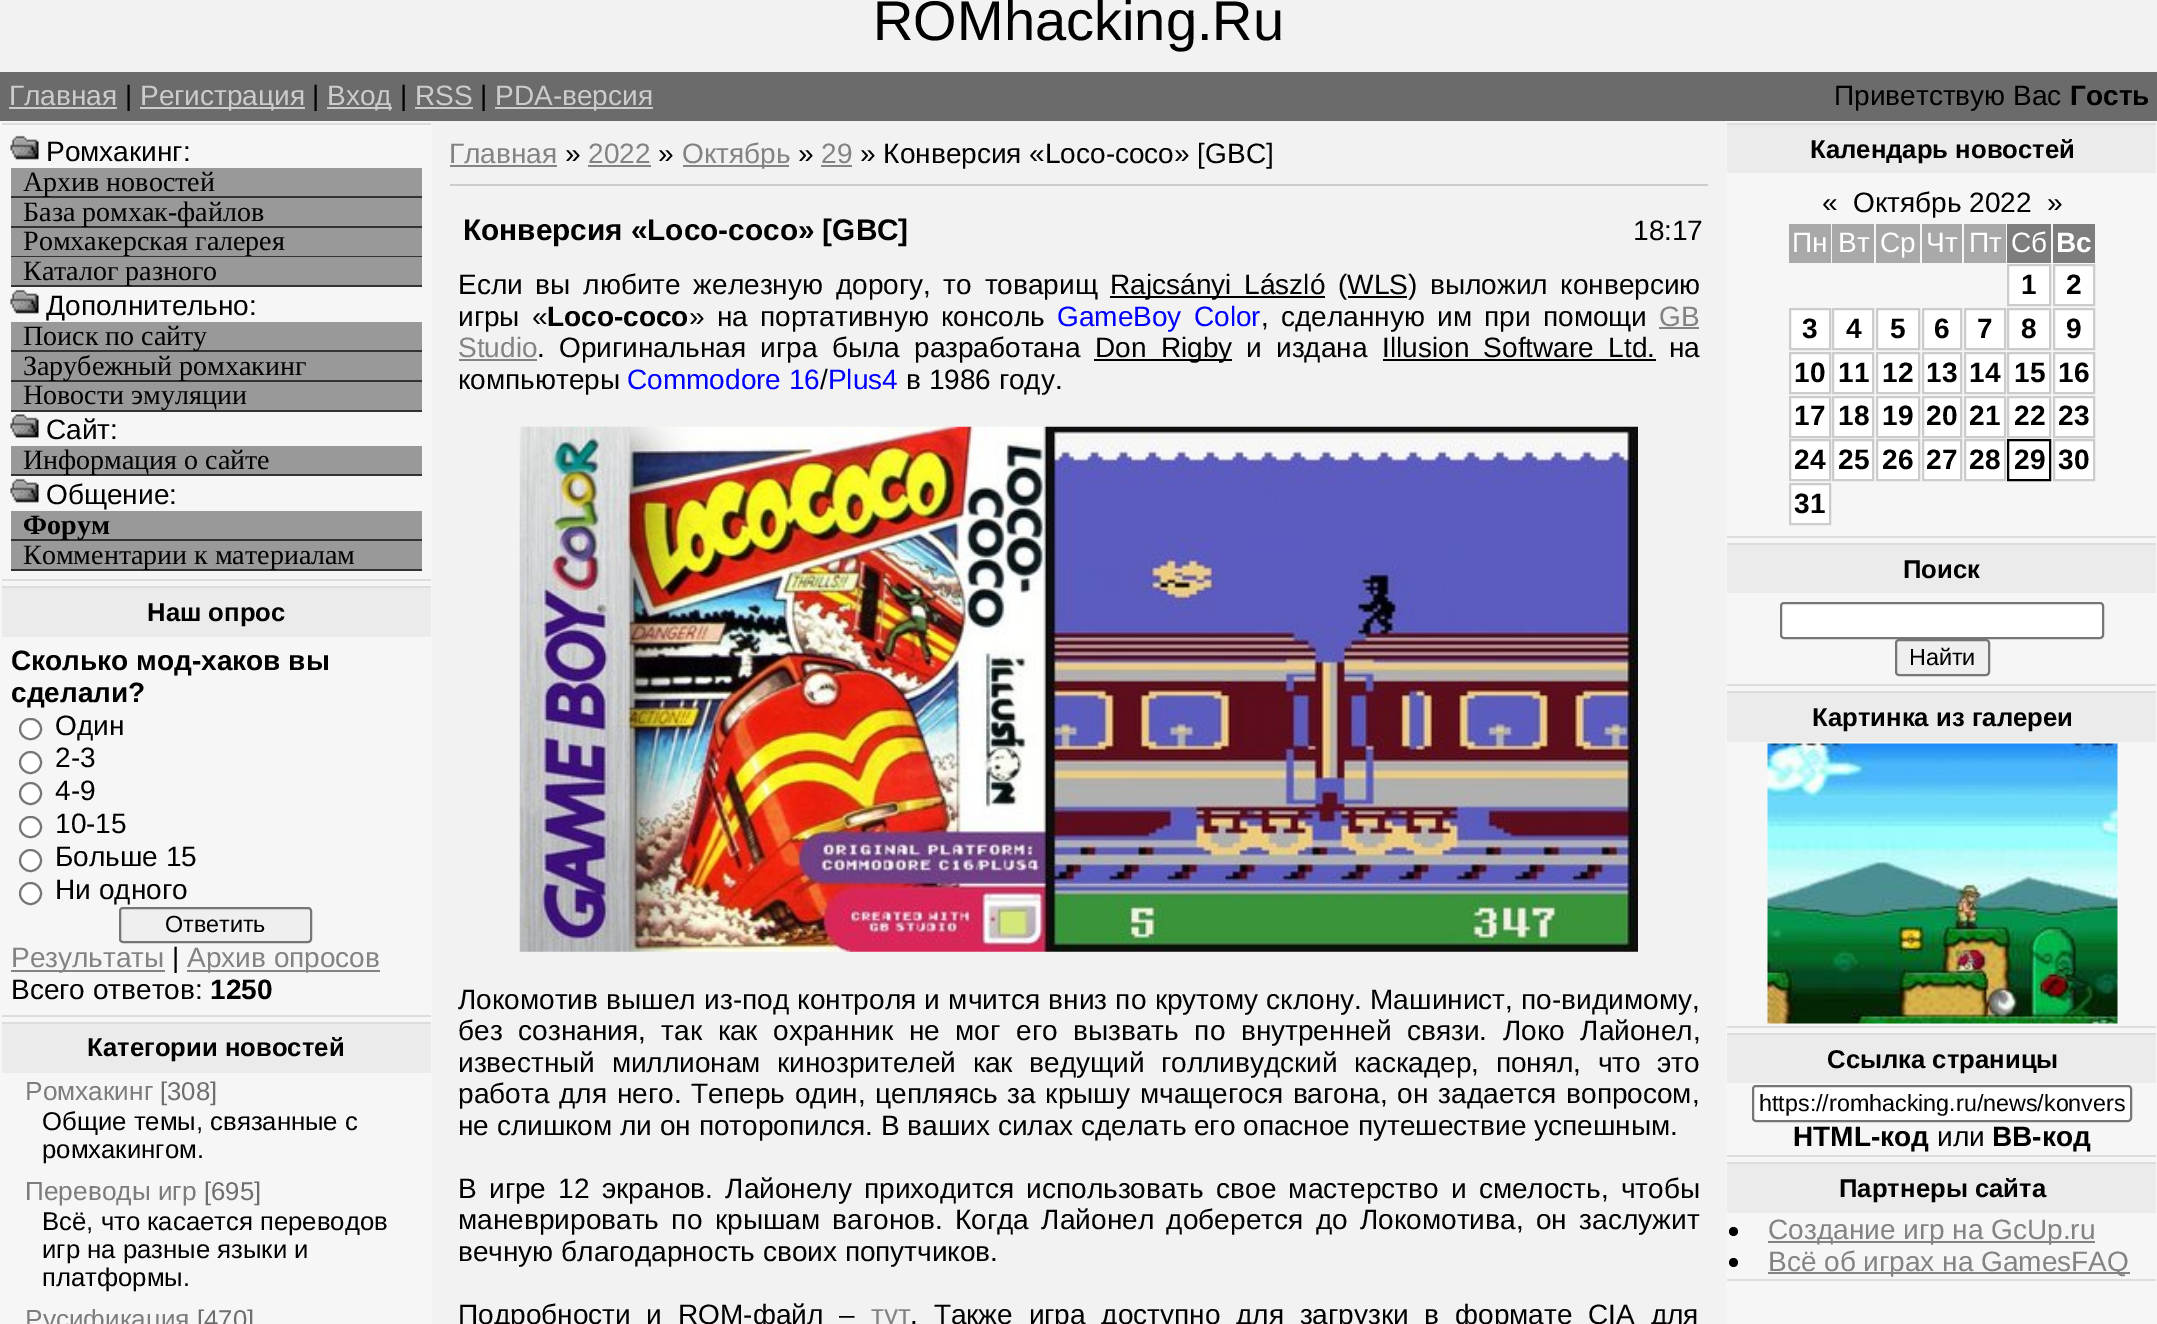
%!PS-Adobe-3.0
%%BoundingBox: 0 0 2157 1324
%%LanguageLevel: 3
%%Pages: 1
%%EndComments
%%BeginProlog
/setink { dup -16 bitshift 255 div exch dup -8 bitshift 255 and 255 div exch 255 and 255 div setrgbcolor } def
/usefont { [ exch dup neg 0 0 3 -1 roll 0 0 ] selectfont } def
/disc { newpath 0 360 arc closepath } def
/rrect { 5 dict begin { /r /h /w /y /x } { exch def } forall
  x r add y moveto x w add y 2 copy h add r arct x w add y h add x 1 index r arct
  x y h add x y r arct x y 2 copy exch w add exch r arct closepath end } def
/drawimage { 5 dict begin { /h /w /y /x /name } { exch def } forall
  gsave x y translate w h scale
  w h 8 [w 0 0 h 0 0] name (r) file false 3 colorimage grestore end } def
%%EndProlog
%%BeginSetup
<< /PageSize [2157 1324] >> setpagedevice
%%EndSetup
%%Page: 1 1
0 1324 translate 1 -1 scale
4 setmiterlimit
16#F2F2F2 setink
0 0 2157 1324 rectfill
/LiberationSans-Regular 56 usefont
16#000000 setink
873 40 moveto (ROMhacking.Ru) show
16#6B6B6B setink
0 72 2157 49 rectfill
/LiberationSans-Regular 28 usefont
16#CCCCCC setink
9 105 moveto (Главная) show
9 107 108 2 rectfill
16#000000 setink
125 105 moveto (|) show
16#CCCCCC setink
140 107 165 2 rectfill
140 105 moveto (Регистрация) show
16#000000 setink
312 105 moveto (|) show
16#CCCCCC setink
327 107 65 2 rectfill
327 105 moveto (Вход) show
16#000000 setink
400 105 moveto (|) show
16#CCCCCC setink
415 105 moveto (RSS) show
415 107 58 2 rectfill
16#000000 setink
480 105 moveto (|) show
16#CCCCCC setink
495 107 158 2 rectfill
495 105 moveto (PDA-версия) show
16#000000 setink
1834 105 moveto (Приветствую Вас) show
/LiberationSans-Bold 28 usefont
2070 105 moveto (Гость) show
[
    [0 121 432 1203 16#F6F6F6]
    [2 123 429 2 16#DDDDDD]
    [2 579 429 2 16#DDDDDD]
] { aload pop setink rectfill } forall
(img1.raw) 10 135 29 25 drawimage
/LiberationSans-Regular 28 usefont
16#000000 setink
46 161 moveto (Ромхакинг:) show
16#999999 setink
11 168 411 28 rectfill
16#333333 setink
11 196 411 2 rectfill
/LiberationSerif-Regular 28 usefont
16#000000 setink
23 191 moveto (Архив новостей) show
16#999999 setink
11 198 411 28 rectfill
16#333333 setink
11 226 411 2 rectfill
16#000000 setink
23 221 moveto (База ромхак-файлов) show
16#999999 setink
11 228 411 28 rectfill
16#333333 setink
11 256 411 1 rectfill
16#000000 setink
23 250 moveto (Ромхакерская галерея) show
16#999999 setink
11 257 411 28 rectfill
16#333333 setink
11 285 411 2 rectfill
16#000000 setink
23 280 moveto (Каталог разного) show
(img1.raw) 10 289 29 25 drawimage
/LiberationSans-Regular 28 usefont
46 315 moveto (Дополнительно:) show
16#999999 setink
11 322 411 28 rectfill
16#333333 setink
11 350 411 2 rectfill
/LiberationSerif-Regular 28 usefont
16#000000 setink
23 345 moveto (Поиск по сайту) show
16#999999 setink
11 352 411 28 rectfill
16#333333 setink
11 380 411 2 rectfill
16#000000 setink
23 375 moveto (Зарубежный ромхакинг) show
16#999999 setink
11 382 411 28 rectfill
16#333333 setink
11 410 411 2 rectfill
16#000000 setink
23 404 moveto (Новости эмуляции) show
(img2.raw) 10 414 29 24 drawimage
/LiberationSans-Regular 28 usefont
46 439 moveto (Cайт:) show
16#999999 setink
11 446 411 28 rectfill
16#333333 setink
11 474 411 2 rectfill
/LiberationSerif-Regular 28 usefont
16#000000 setink
23 469 moveto (Информация о сайте) show
(img1.raw) 10 478 29 25 drawimage
/LiberationSans-Regular 28 usefont
46 504 moveto (Общение:) show
16#999999 setink
11 511 411 28 rectfill
16#333333 setink
11 539 411 2 rectfill
/LiberationSerif-Bold 28 usefont
16#000000 setink
23 534 moveto (Форум) show
16#999999 setink
11 541 411 28 rectfill
16#333333 setink
11 569 411 2 rectfill
/LiberationSerif-Regular 28 usefont
16#000000 setink
23 564 moveto (Комментарии к материалам) show
[
    [2 586 429 2 16#DDDDDD]
    [2 1015 429 2 16#DDDDDD]
    [2 588 429 49 16#EBEBEB]
] { aload pop setink rectfill } forall
/LiberationSans-Bold 25.7 usefont
16#000000 setink
147 621 moveto (Наш опрос) show
/LiberationSans-Bold 28 usefont
11 670 moveto (Сколько мод-хаков вы) show
11 702 moveto (сделали?) show
16#FFFFFF setink
20 719 21 20 10 rrect gsave fill grestore
16#767676 setink
2 setlinewidth
stroke
/LiberationSans-Regular 28 usefont
16#000000 setink
55 735 moveto (Один) show
16#FFFFFF setink
30.5 762.5 10.5 disc gsave fill grestore
16#767676 setink
stroke
16#000000 setink
55 767 moveto (2-3) show
16#FFFFFF setink
30.5 793.5 10.5 disc gsave fill grestore
16#767676 setink
stroke
16#000000 setink
55 800 moveto (4-9) show
16#FFFFFF setink
20 817 21 20 10 rrect gsave fill grestore
16#767676 setink
stroke
16#000000 setink
55 833 moveto (10-15) show
16#FFFFFF setink
30.5 860.5 10.5 disc gsave fill grestore
16#767676 setink
stroke
16#000000 setink
55 866 moveto (Больше 15) show
16#FFFFFF setink
30.5 893.5 10.5 disc gsave fill grestore
16#767676 setink
stroke
16#000000 setink
55 899 moveto (Ни одного) show
16#EFEFEF setink
120 908 191 34 3 rrect gsave fill grestore
16#767676 setink
stroke
/LiberationSans-Regular 23.3 usefont
16#000000 setink
165 932 moveto (Ответить) show
16#838383 setink
11 970 154 2 rectfill
/LiberationSans-Regular 28 usefont
11 967 moveto (Результаты) show
16#000000 setink
172 967 moveto (|) show
16#838383 setink
187 970 193 2 rectfill
187 967 moveto (Архив опросов) show
16#000000 setink
11 999 moveto (Всего ответов:) show
/LiberationSans-Bold 28 usefont
210 999 moveto (1250) show
16#DDDDDD setink
2 1022 429 2 rectfill
16#EBEBEB setink
2 1024 429 49 rectfill
/LiberationSans-Bold 25.7 usefont
16#000000 setink
87 1056 moveto (Категории новостей) show
/LiberationSans-Regular 26.25 usefont
16#7D7D7D setink
25 1100 moveto (Ромхакинг) show
/LiberationSans-Regular 25.7 usefont
16#6E6E6E setink
160 1100 moveto ([308]) show
16#000000 setink
42 1130 moveto (Общие темы, связанные с) show
42 1158 moveto (ромхакингом.) show
/LiberationSans-Regular 26.25 usefont
16#7D7D7D setink
25 1200 moveto (Переводы игр) show
/LiberationSans-Regular 25.7 usefont
16#6E6E6E setink
204 1200 moveto ([695]) show
16#000000 setink
[
    [(Всё, что касается переводов) 42 1230]
    [(игр на разные языки и) 42 1258]
    [(платформы.) 42 1286]
] { aload pop moveto show } forall
/LiberationSans-Regular 26.25 usefont
16#7D7D7D setink
25 1328 moveto (Русификация) show
/LiberationSans-Regular 25.7 usefont
16#6E6E6E setink
197 1328 moveto ([470]) show
/LiberationSans-Regular 28 usefont
16#838383 setink
449 163 moveto (Главная) show
450 165 107 2 rectfill
16#000000 setink
565 163 moveto (») show
16#838383 setink
588 163 moveto (2022) show
588 165 63 2 rectfill
16#000000 setink
658 163 moveto (») show
16#838383 setink
683 165 106 2 rectfill
682 163 moveto (Октябрь) show
16#000000 setink
798 163 moveto (») show
16#838383 setink
821 163 moveto (29) show
821 165 31 2 rectfill
16#000000 setink
860 163 moveto (» Конверсия «Loco-coco» [GBC]) show
16#CCCCCC setink
450 184 1258 2 rectfill
/LiberationSans-Bold 29.75 usefont
16#000000 setink
463 240 moveto (Конверсия «Loco-coco» [GBC]) show
/LiberationSans-Regular 28 usefont
1633 240 moveto (18:17) show
458 294 moveto 5 0 32 (Если вы любите железную дорогу, то товарищ) widthshow
1110 296 215 2 rectfill
1110 294 moveto 5 0 32 (Rajcsányi László) widthshow
1338 294 moveto (\(WLS) show
1408 294 moveto 5 0 32 (\) выложил конверсию) widthshow
1348 296 59 2 rectfill
458 326 moveto 4.5 0 32 (игры «) widthshow
/LiberationSans-Bold 28 usefont
547 326 moveto (Loco-coco) show
/LiberationSans-Regular 28 usefont
689 326 moveto 4.5 0 32 (» на портативную консоль) widthshow
16#0000FF setink
1057 326 moveto 4.5 0 32 (GameBoy Color) widthshow
16#000000 setink
1261 326 moveto 4.5 0 32 (, сделанную им при помощи) widthshow
16#838383 setink
1659 326 moveto (GB) show
1659 327 40 2 rectfill
458 357 moveto (Studio) show
459 359 78 2 rectfill
16#000000 setink
537 357 moveto 6.5 0 32 (. Оригинальная игра была разработана) widthshow
1094 359 138 2 rectfill
1095 357 moveto 6.5 0 32 (Don Rigby) widthshow
1246 357 moveto 6.5 0 32 (и издана) widthshow
1382 357 moveto 6.5 0 32 (Illusion Software Ltd.) widthshow
1383 359 273 2 rectfill
1669 357 moveto (на) show
16#0000FF setink
627 389 moveto (Commodore 16 Plus4) show
16#000000 setink
[
    [(компьютеры) 458 389]
    [(/) 820 389]
    [(в 1986 году.) 906 389]
] { aload pop moveto show } forall
(img3.raw) 519 426 1119 526 drawimage
458 1009 moveto 0.6 0 32 (Локомотив вышел из-под контроля и мчится вниз по крутому склону. Машинист, по-видимому,) widthshow
458 1040 moveto 7.9 0 32 (без сознания, так как охранник не мог его вызвать по внутренней связи. Локо Лайонел,) widthshow
458 1072 moveto 8.75 0 32 (известный миллионам кинозрителей как ведущий голливудский каскадер, понял, что это) widthshow
458 1103 moveto 2.1 0 32 (работа для него. Теперь один, цепляясь за крышу мчащегося вагона, он задается вопросом,) widthshow
458 1135 moveto (не слишком ли он поторопился. В ваших силах сделать его опасное путешествие успешным.) show
458 1198 moveto 4.5 0 32 (В игре 12 экранов. Лайонелу приходится использовать свое мастерство и смелость, чтобы) widthshow
458 1229 moveto 4.75 0 32 (маневрировать по крышам вагонов. Когда Лайонел доберется до Локомотива, он заслужит) widthshow
458 1261 moveto (вечную благодарность своих попутчиков.) show
458 1324 moveto 8 0 32 (Подробности и ROM-файл –) widthshow
16#838383 setink
871 1324 moveto (тут) show
16#000000 setink
910 1324 moveto 8 0 32 (. Также игра доступно для загрузки в формате CIA для) widthshow
[
    [1726 121 431 1203 16#F6F6F6]
    [1727 123 429 2 16#DDDDDD]
    [1727 536 429 2 16#DDDDDD]
    [1727 125 429 48 16#EBEBEB]
] { aload pop setink rectfill } forall
/LiberationSans-Bold 25.7 usefont
16#000000 setink
1810 158 moveto (Календарь новостей) show
/LiberationSans-Regular 28 usefont
[
    [(«) 1822 212]
    [(Октябрь 2022) 1853 212]
    [(») 2047 212]
] { aload pop moveto show } forall
16#A9A9A9 setink
1789 224 42 39 rectfill
16#FFFFFF setink
1792 252 moveto (Пн) show
16#A9A9A9 setink
1832 224 42 39 rectfill
16#FFFFFF setink
1838 252 moveto (Вт) show
16#A9A9A9 setink
1876 224 44 39 rectfill
16#FFFFFF setink
1880 252 moveto (Ср) show
16#A9A9A9 setink
1922 224 40 39 rectfill
16#FFFFFF setink
1926 252 moveto (Чт) show
16#A9A9A9 setink
1964 224 42 39 rectfill
16#FFFFFF setink
1969 252 moveto (Пт) show
16#7D7D7D setink
2007 224 44 39 rectfill
16#FFFFFF setink
2011 252 moveto (Сб) show
16#7D7D7D setink
2053 224 42 39 rectfill
/LiberationSans-Bold 28 usefont
16#FFFFFF setink
2056 252 moveto (Вс) show
2008 265 moveto 2050 265 lineto 2050 305 lineto 2008 305 lineto closepath gsave fill grestore
16#CCCCCC setink
stroke
16#000000 setink
2021 294 moveto (1) show
16#FFFFFF setink
2054 265 moveto 2094 265 lineto 2094 305 lineto 2054 305 lineto closepath gsave fill grestore
16#CCCCCC setink
stroke
16#000000 setink
2066 294 moveto (2) show
16#FFFFFF setink
1790 309 moveto 1830 309 lineto 1830 349 lineto 1790 349 lineto closepath gsave fill grestore
16#CCCCCC setink
stroke
16#000000 setink
1802 338 moveto (3) show
16#FFFFFF setink
1833 309 moveto 1873 309 lineto 1873 349 lineto 1833 349 lineto closepath gsave fill grestore
16#CCCCCC setink
stroke
16#000000 setink
1846 338 moveto (4) show
16#FFFFFF setink
1877 309 moveto 1919 309 lineto 1919 349 lineto 1877 349 lineto closepath gsave fill grestore
16#CCCCCC setink
stroke
16#000000 setink
1890 338 moveto (5) show
16#FFFFFF setink
1923 309 moveto 1961 309 lineto 1961 349 lineto 1923 349 lineto closepath gsave fill grestore
16#CCCCCC setink
stroke
16#000000 setink
1934 338 moveto (6) show
16#FFFFFF setink
1965 309 moveto 2005 309 lineto 2005 349 lineto 1965 349 lineto closepath gsave fill grestore
16#CCCCCC setink
stroke
16#000000 setink
1977 338 moveto (7) show
16#FFFFFF setink
2008 309 moveto 2050 309 lineto 2050 349 lineto 2008 349 lineto closepath gsave fill grestore
16#CCCCCC setink
stroke
16#000000 setink
2021 338 moveto (8) show
16#FFFFFF setink
2054 309 moveto 2094 309 lineto 2094 349 lineto 2054 349 lineto closepath gsave fill grestore
16#CCCCCC setink
stroke
16#000000 setink
2066 338 moveto (9) show
16#FFFFFF setink
1790 353 moveto 1830 353 lineto 1830 393 lineto 1790 393 lineto closepath gsave fill grestore
16#CCCCCC setink
stroke
16#000000 setink
1794 382 moveto (10) show
16#FFFFFF setink
1833 353 moveto 1873 353 lineto 1873 393 lineto 1833 393 lineto closepath gsave fill grestore
16#CCCCCC setink
stroke
16#000000 setink
1838 382 moveto (11) show
16#FFFFFF setink
1877 353 moveto 1919 353 lineto 1919 393 lineto 1877 393 lineto closepath gsave fill grestore
16#CCCCCC setink
stroke
16#000000 setink
1882 382 moveto (12) show
16#FFFFFF setink
1923 353 moveto 1961 353 lineto 1961 393 lineto 1923 393 lineto closepath gsave fill grestore
16#CCCCCC setink
stroke
16#000000 setink
1926 382 moveto (13) show
16#FFFFFF setink
1965 353 moveto 2005 353 lineto 2005 393 lineto 1965 393 lineto closepath gsave fill grestore
16#CCCCCC setink
stroke
16#000000 setink
1969 382 moveto (14) show
16#FFFFFF setink
2008 353 moveto 2050 353 lineto 2050 393 lineto 2008 393 lineto closepath gsave fill grestore
16#CCCCCC setink
stroke
16#000000 setink
2014 382 moveto (15) show
16#FFFFFF setink
2054 353 moveto 2094 353 lineto 2094 393 lineto 2054 393 lineto closepath gsave fill grestore
16#CCCCCC setink
stroke
16#000000 setink
2058 382 moveto (16) show
16#FFFFFF setink
1790 397 moveto 1830 397 lineto 1830 437 lineto 1790 437 lineto closepath gsave fill grestore
16#CCCCCC setink
stroke
16#000000 setink
1794 425 moveto (17) show
16#FFFFFF setink
1833 397 moveto 1873 397 lineto 1873 437 lineto 1833 437 lineto closepath gsave fill grestore
16#CCCCCC setink
stroke
16#000000 setink
1838 425 moveto (18) show
16#FFFFFF setink
1877 397 moveto 1919 397 lineto 1919 437 lineto 1877 437 lineto closepath gsave fill grestore
16#CCCCCC setink
stroke
16#000000 setink
1882 425 moveto (19) show
16#FFFFFF setink
1923 397 moveto 1961 397 lineto 1961 437 lineto 1923 437 lineto closepath gsave fill grestore
16#CCCCCC setink
stroke
16#000000 setink
1926 425 moveto (20) show
16#FFFFFF setink
1965 397 moveto 2005 397 lineto 2005 437 lineto 1965 437 lineto closepath gsave fill grestore
16#CCCCCC setink
stroke
16#000000 setink
1969 425 moveto (21) show
16#FFFFFF setink
2008 397 moveto 2050 397 lineto 2050 437 lineto 2008 437 lineto closepath gsave fill grestore
16#CCCCCC setink
stroke
16#000000 setink
2014 425 moveto (22) show
16#FFFFFF setink
2054 397 moveto 2094 397 lineto 2094 437 lineto 2054 437 lineto closepath gsave fill grestore
16#CCCCCC setink
stroke
16#000000 setink
2058 425 moveto (23) show
16#FFFFFF setink
1790 440 moveto 1830 440 lineto 1830 480 lineto 1790 480 lineto closepath gsave fill grestore
16#CCCCCC setink
stroke
16#000000 setink
1794 469 moveto (24) show
16#FFFFFF setink
1833 440 moveto 1873 440 lineto 1873 480 lineto 1833 480 lineto closepath gsave fill grestore
16#CCCCCC setink
stroke
16#000000 setink
1838 469 moveto (25) show
16#FFFFFF setink
1877 440 moveto 1919 440 lineto 1919 480 lineto 1877 480 lineto closepath gsave fill grestore
16#CCCCCC setink
stroke
16#000000 setink
1882 469 moveto (26) show
16#FFFFFF setink
1923 440 moveto 1961 440 lineto 1961 480 lineto 1923 480 lineto closepath gsave fill grestore
16#CCCCCC setink
stroke
16#000000 setink
1926 469 moveto (27) show
16#FFFFFF setink
1965 440 moveto 2005 440 lineto 2005 480 lineto 1965 480 lineto closepath gsave fill grestore
16#CCCCCC setink
stroke
16#000000 setink
1969 469 moveto (28) show
16#FFFFFF setink
2008 440 moveto 2050 440 lineto 2050 480 lineto 2008 480 lineto closepath gsave fill grestore
16#000000 setink
stroke
2014 469 moveto (29) show
16#FFFFFF setink
2054 440 moveto 2094 440 lineto 2094 480 lineto 2054 480 lineto closepath gsave fill grestore
16#CCCCCC setink
stroke
16#000000 setink
2058 469 moveto (30) show
16#FFFFFF setink
1790 484 moveto 1830 484 lineto 1830 524 lineto 1790 524 lineto closepath gsave fill grestore
16#CCCCCC setink
stroke
16#000000 setink
1794 513 moveto (31) show
[
    [1727 543 429 2 16#DDDDDD]
    [1727 684 429 2 16#DDDDDD]
    [1727 545 429 48 16#EBEBEB]
] { aload pop setink rectfill } forall
/LiberationSans-Bold 25.7 usefont
16#000000 setink
1903 578 moveto (Поиск) show
16#FFFFFF setink
1781 603 322 35 3 rrect gsave fill grestore
16#767676 setink
stroke
16#EFEFEF setink
1896 640 93 35 3 rrect gsave fill grestore
16#767676 setink
stroke
/LiberationSans-Regular 23.3 usefont
16#000000 setink
1909 665 moveto (Найти) show
[
    [1727 691 429 2 16#DDDDDD]
    [1727 1026 429 2 16#DDDDDD]
    [1727 693 429 49 16#EBEBEB]
] { aload pop setink rectfill } forall
/LiberationSans-Bold 25.7 usefont
16#000000 setink
1812 726 moveto (Картинка из галереи) show
(img4.raw) 1767 743 351 281 drawimage
[
    [1727 1033 429 2 16#DDDDDD]
    [1727 1155 429 2 16#DDDDDD]
    [1727 1035 429 48 16#EBEBEB]
] { aload pop setink rectfill } forall
16#000000 setink
1827 1068 moveto (Ссылка страницы) show
16#FFFFFF setink
1753 1086 378 35 3 rrect gsave fill grestore
16#767676 setink
stroke
/LiberationSans-Regular 23.3 usefont
16#000000 setink
1759 1111 moveto (https://romhacking.ru/news/konvers) show
/LiberationSans-Bold 28 usefont
1793 1146 moveto (HTML-код) show
/LiberationSans-Regular 28 usefont
1937 1146 moveto (или) show
/LiberationSans-Bold 28 usefont
1992 1146 moveto (BB-код) show
[
    [1727 1162 429 2 16#DDDDDD]
    [1727 1279 429 2 16#DDDDDD]
    [1727 1164 429 49 16#EBEBEB]
] { aload pop setink rectfill } forall
/LiberationSans-Bold 25.7 usefont
16#000000 setink
1839 1197 moveto (Партнеры сайта) show
1733.5 1231.5 4.5 disc fill
16#838383 setink
1768 1241 327 2 rectfill
/LiberationSans-Regular 28 usefont
1768 1239 moveto (Создание игр на GcUp.ru) show
16#000000 setink
1733.5 1262.5 4.5 disc fill
16#838383 setink
1768 1272 362 2 rectfill
1768 1271 moveto (Всё об играх на GamesFAQ) show
showpage
%%EOF
